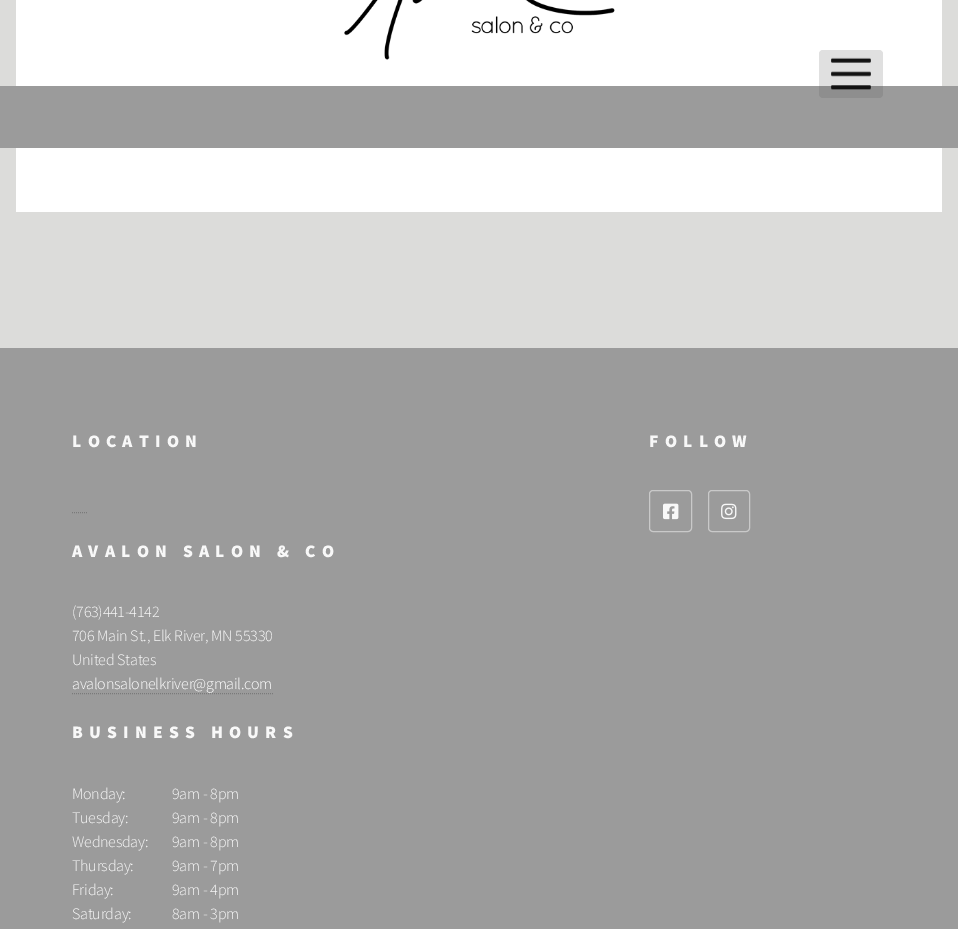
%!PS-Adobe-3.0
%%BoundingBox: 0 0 958 929
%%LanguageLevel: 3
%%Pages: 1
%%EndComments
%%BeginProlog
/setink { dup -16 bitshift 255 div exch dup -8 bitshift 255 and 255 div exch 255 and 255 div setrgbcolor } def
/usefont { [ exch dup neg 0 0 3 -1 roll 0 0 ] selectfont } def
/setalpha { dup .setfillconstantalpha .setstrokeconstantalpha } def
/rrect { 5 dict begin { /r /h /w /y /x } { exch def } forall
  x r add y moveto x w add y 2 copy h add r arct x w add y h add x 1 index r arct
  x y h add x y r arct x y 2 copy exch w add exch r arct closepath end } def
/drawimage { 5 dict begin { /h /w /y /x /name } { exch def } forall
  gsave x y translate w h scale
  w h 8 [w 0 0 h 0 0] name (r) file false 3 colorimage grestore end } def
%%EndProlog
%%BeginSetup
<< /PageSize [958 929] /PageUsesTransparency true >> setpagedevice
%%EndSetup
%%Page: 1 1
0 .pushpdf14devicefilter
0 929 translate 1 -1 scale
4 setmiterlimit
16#DCDCDA setink
0 0 958 929 rectfill
16#FFFFFF setink
16 0 926 86 rectfill
(img1.raw) 344 0 271 60 drawimage
16#9B9B9B setink
0 86 958 62 rectfill
0.19 setalpha
16#585858 setink
819 50 64 48 4 rrect fill
1 setalpha
(img2.raw) 831 57 40 33 drawimage
16#FFFFFF setink
16 148 926 64 rectfill
16#9B9B9B setink
0 348 958 581 rectfill
/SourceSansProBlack-Black 17.6 usefont
16#F8F8F8 setink
72 447 moveto 6.2 0 (LOCATION) ashow
16#7A7A7A setink
[1 1] 0 setdash
72 512.5 moveto 88 512.5 lineto stroke
16#F8F8F8 setink
72 557 moveto 6.2 0 (AVALON SALON & CO) ashow
/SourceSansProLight-Light 16 usefont
72 617 moveto -0.25 0 (\(763\)441-4142) ashow
72 641 moveto -0.25 0 (706 Main St., Elk River, MN 55330) ashow
72 665 moveto -0.25 0 (United States) ashow
16#FFFFFF setink
72 689 moveto -0.25 0 (avalonsalonelkriver@gmail.com) ashow
16#7A7A7A setink
72 693.5 moveto 273 693.5 lineto stroke
/SourceSansProBlack-Black 17.6 usefont
16#F8F8F8 setink
72 738 moveto 6.2 0 (BUSINESS HOURS) ashow
/SourceSansProLight-Light 16 usefont
72 799 moveto -0.25 0 (Monday:) ashow
172 799 moveto -0.25 0 (9am - 8pm) ashow
72 823 moveto -0.25 0 (Tuesday:) ashow
172 823 moveto -0.25 0 (9am - 8pm) ashow
72 847 moveto -0.25 0 (Wednesday:) ashow
172 847 moveto -0.25 0 (9am - 8pm) ashow
72 871 moveto -0.25 0 (Thursday:) ashow
172 871 moveto -0.25 0 (9am - 7pm) ashow
72 895 moveto -0.25 0 (Friday:) ashow
172 895 moveto -0.25 0 (9am - 4pm) ashow
72 919 moveto -0.25 0 (Saturday:) ashow
172 919 moveto -0.25 0 (8am - 3pm) ashow
/SourceSansProBlack-Black 17.6 usefont
649 447 moveto 6.2 0 (FOLLOW) ashow
16#C9C9C9 setink
[] 0 setdash
649.5 490.5 42 41 3.5 rrect stroke
(img3.raw) 663 503 16 17 drawimage
708.5 490.5 41 41 3.5 rrect stroke
(img4.raw) 721 503 16 17 drawimage
.poppdf14devicefilter showpage
%%EOF
